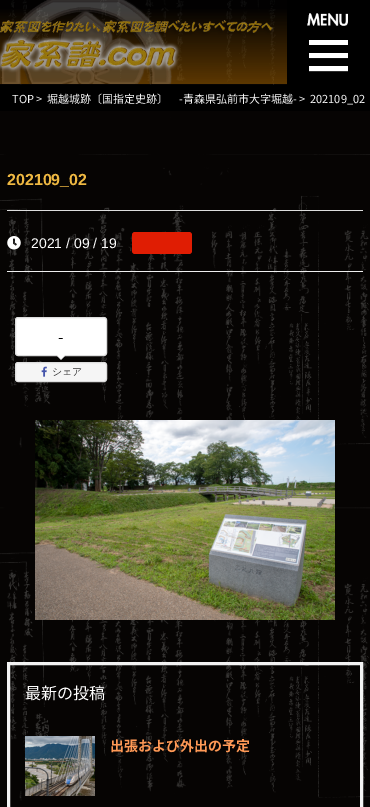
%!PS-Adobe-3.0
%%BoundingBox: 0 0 370 807
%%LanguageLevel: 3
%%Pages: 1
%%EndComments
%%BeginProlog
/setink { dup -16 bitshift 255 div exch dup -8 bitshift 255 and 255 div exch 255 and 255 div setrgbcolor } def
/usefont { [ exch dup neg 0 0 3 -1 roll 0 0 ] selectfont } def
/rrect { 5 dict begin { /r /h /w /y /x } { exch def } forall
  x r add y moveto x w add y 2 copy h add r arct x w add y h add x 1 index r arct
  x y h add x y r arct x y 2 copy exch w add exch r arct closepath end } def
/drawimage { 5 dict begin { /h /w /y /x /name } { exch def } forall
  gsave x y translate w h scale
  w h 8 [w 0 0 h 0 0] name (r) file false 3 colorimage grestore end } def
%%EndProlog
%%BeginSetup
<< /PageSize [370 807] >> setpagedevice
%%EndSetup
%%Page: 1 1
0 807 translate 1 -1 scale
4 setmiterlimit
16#FFFFFF setink
0 0 370 807 rectfill
(img1.raw) 0 0 370 807 drawimage
(img2.raw) 0 0 287 84 drawimage
(img3.raw) 287 0 83 85 drawimage
16#000000 setink
0 85 370 26 rectfill
/NotoSansJP-Regular 11 usefont
16#F3F3F3 setink
[
    [(TOP >) 12 103]
    [(堀越城跡〔国指定史跡〕　-青森県弘前市大字堀越- >) 47 103]
    [(202109_02) 310 103]
] { aload pop moveto show } forall
16#DDDDDD setink
7 210 356 1 rectfill
/LiberationSans-Bold 16 usefont
16#EEB842 setink
7 185 moveto (202109_02) show
16#EEEEEE setink
7 271 356 1 rectfill
(img4.raw) 7 236 14 14 drawimage
/LiberationSans-Regular 14 usefont
16#FFFFFF setink
31 248 moveto (2021 / 09 / 19) show
16#E01D03 setink
132 232 60 22 3 rrect fill
16#FFFFFF setink
15.5 317.5 91 38 2.5 rrect gsave fill grestore
16#DDDDDD setink
stroke
/NotoSansJP-Regular 16 usefont
16#000000 setink
58 343 moveto (-) show
16#DDDDDD setink
56 355 moveto 66 355 lineto 61 360 lineto closepath fill
16#FFFFFF setink
56 354 moveto 66 354 lineto 61 359 lineto closepath fill
16#F5F5F5 setink
15.5 362.5 91 19 2.5 rrect gsave fill grestore
16#DDDDDD setink
stroke
(img5.raw) 41 366 6 11 drawimage
/WenQuanYiZenHei-Medium 10 usefont
16#333333 setink
52 375 moveto (シェア) show
(img6.raw) 35 420 300 200 drawimage
16#F3F3F3 setink
3 setlinewidth
8.5 663.5 353 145 rectstroke
/NotoSansJP-Regular 16 usefont
16#FFFFFF setink
25 699 moveto (最新の投稿) show
(img7.raw) 25 736 70 60 drawimage
/NotoSansJP-Bold 14 usefont
16#FF9956 setink
110 751 moveto (出張および外出の予定) show
showpage
%%EOF
